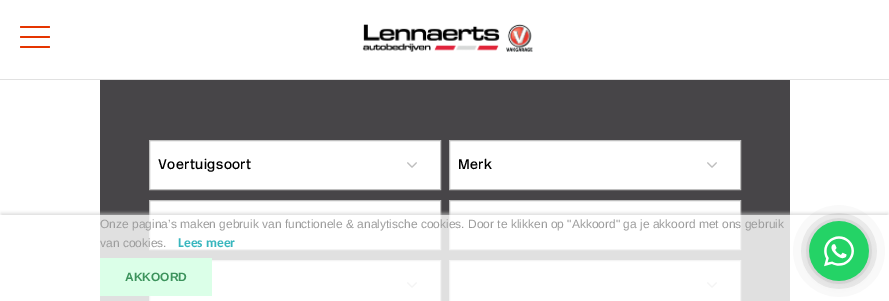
%!PS-Adobe-3.0
%%BoundingBox: 0 0 889 301
%%LanguageLevel: 3
%%Pages: 1
%%EndComments
%%BeginProlog
/setink { dup -16 bitshift 255 div exch dup -8 bitshift 255 and 255 div exch 255 and 255 div setrgbcolor } def
/usefont { [ exch dup neg 0 0 3 -1 roll 0 0 ] selectfont } def
/setalpha { dup .setfillconstantalpha .setstrokeconstantalpha } def
/rrect { 5 dict begin { /r /h /w /y /x } { exch def } forall
  x r add y moveto x w add y 2 copy h add r arct x w add y h add x 1 index r arct
  x y h add x y r arct x y 2 copy exch w add exch r arct closepath end } def
/softshadow { 12 dict begin { /a /b /q /h /w /y /x } { exch def } forall gsave /was 0 def
  9 -2 -9 { dup b mul 4 div /e exch def 1 sub .425 mul 2.718 exch exp 1 add a .99 .min exch div /now exch def
    1 1 now sub 1 was sub div sub setalpha /was now def
    w h .min e 2 mul add 0 gt { x e sub y e sub w e 2 mul add h e 2 mul add
      q e add b .6 mul add w h .min 2 div e add .min 0 .max rrect fill } if } for grestore end } def
/drawimage { 5 dict begin { /h /w /y /x /name } { exch def } forall
  gsave x y translate w h scale
  w h 8 [w 0 0 h 0 0] name (r) file false 3 colorimage grestore end } def
%%EndProlog
%%BeginSetup
<< /PageSize [889 301] /PageUsesTransparency true >> setpagedevice
%%EndSetup
%%Page: 1 1
0 .pushpdf14devicefilter
0 301 translate 1 -1 scale
4 setmiterlimit
16#FFFFFF setink
0 0 889 301 rectfill
16#E1E1E1 setink
0 79 889 1 rectfill
16#E53500 setink
20 46 30 2 1 rrect fill
20 26 30 2 1 rrect fill
20 36 30 2 1 rrect fill
(img1.raw) 362 24 171 28 drawimage
16#474548 setink
100 80 690 221 rectfill
16#FFFFFF setink
150 141 290 48 rectfill
(img2.raw) 407 162 10 6 drawimage
16#BEBEBE setink
149.5 140.5 291 49 rectstroke
/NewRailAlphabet-Medium 14 usefont
16#000000 setink
158 169 moveto 0.4 0 (Voertuigsoort) ashow
16#FFFFFF setink
450 141 290 48 rectfill
(img2.raw) 707 162 10 6 drawimage
16#BEBEBE setink
449.5 140.5 291 49 rectstroke
16#000000 setink
458 169 moveto 0.4 0 (Merk) ashow
16#FFFFFF setink
150 201 290 48 rectfill
(img2.raw) 407 222 10 6 drawimage
16#BEBEBE setink
149.5 200.5 291 49 rectstroke
16#FFFFFF setink
450 201 290 48 rectfill
(img2.raw) 707 222 10 6 drawimage
16#BEBEBE setink
449.5 200.5 291 49 rectstroke
16#FFFFFF setink
150 261 290 40 rectfill
(img2.raw) 407 282 10 6 drawimage
16#BEBEBE setink
149.5 260.5 291 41 rectstroke
16#FFFFFF setink
450 261 290 40 rectfill
(img2.raw) 707 282 10 6 drawimage
16#BEBEBE setink
449.5 260.5 291 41 rectstroke
gsave
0 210 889 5 rectclip
16#CBCBCB setink
1 213 887 84 0 1.5 0.6 softshadow
grestore
0.83 setalpha
16#FFFFFF setink
100 215 690 86 rectfill
/LiberationSans-Regular 12 usefont
1 setalpha
16#9C9C9C setink
100 228 moveto (Onze pagina’s maken gebruik van functionele & analytische cookies. Door te klikken op "Akkoord" ga je akkoord met ons gebruik) show
100 247 moveto (van cookies.) show
/Carlito-Bold 13.5 usefont
16#38B6BE setink
178 247 moveto (Lees meer) show
16#DBFFE8 setink
100 258 112 38 rectfill
/LiberationSans-Bold 12 usefont
16#3C935C setink
125 281 moveto (AKKOORD) show
(img3.raw) 793 205 92 92 drawimage
.poppdf14devicefilter showpage
%%EOF
